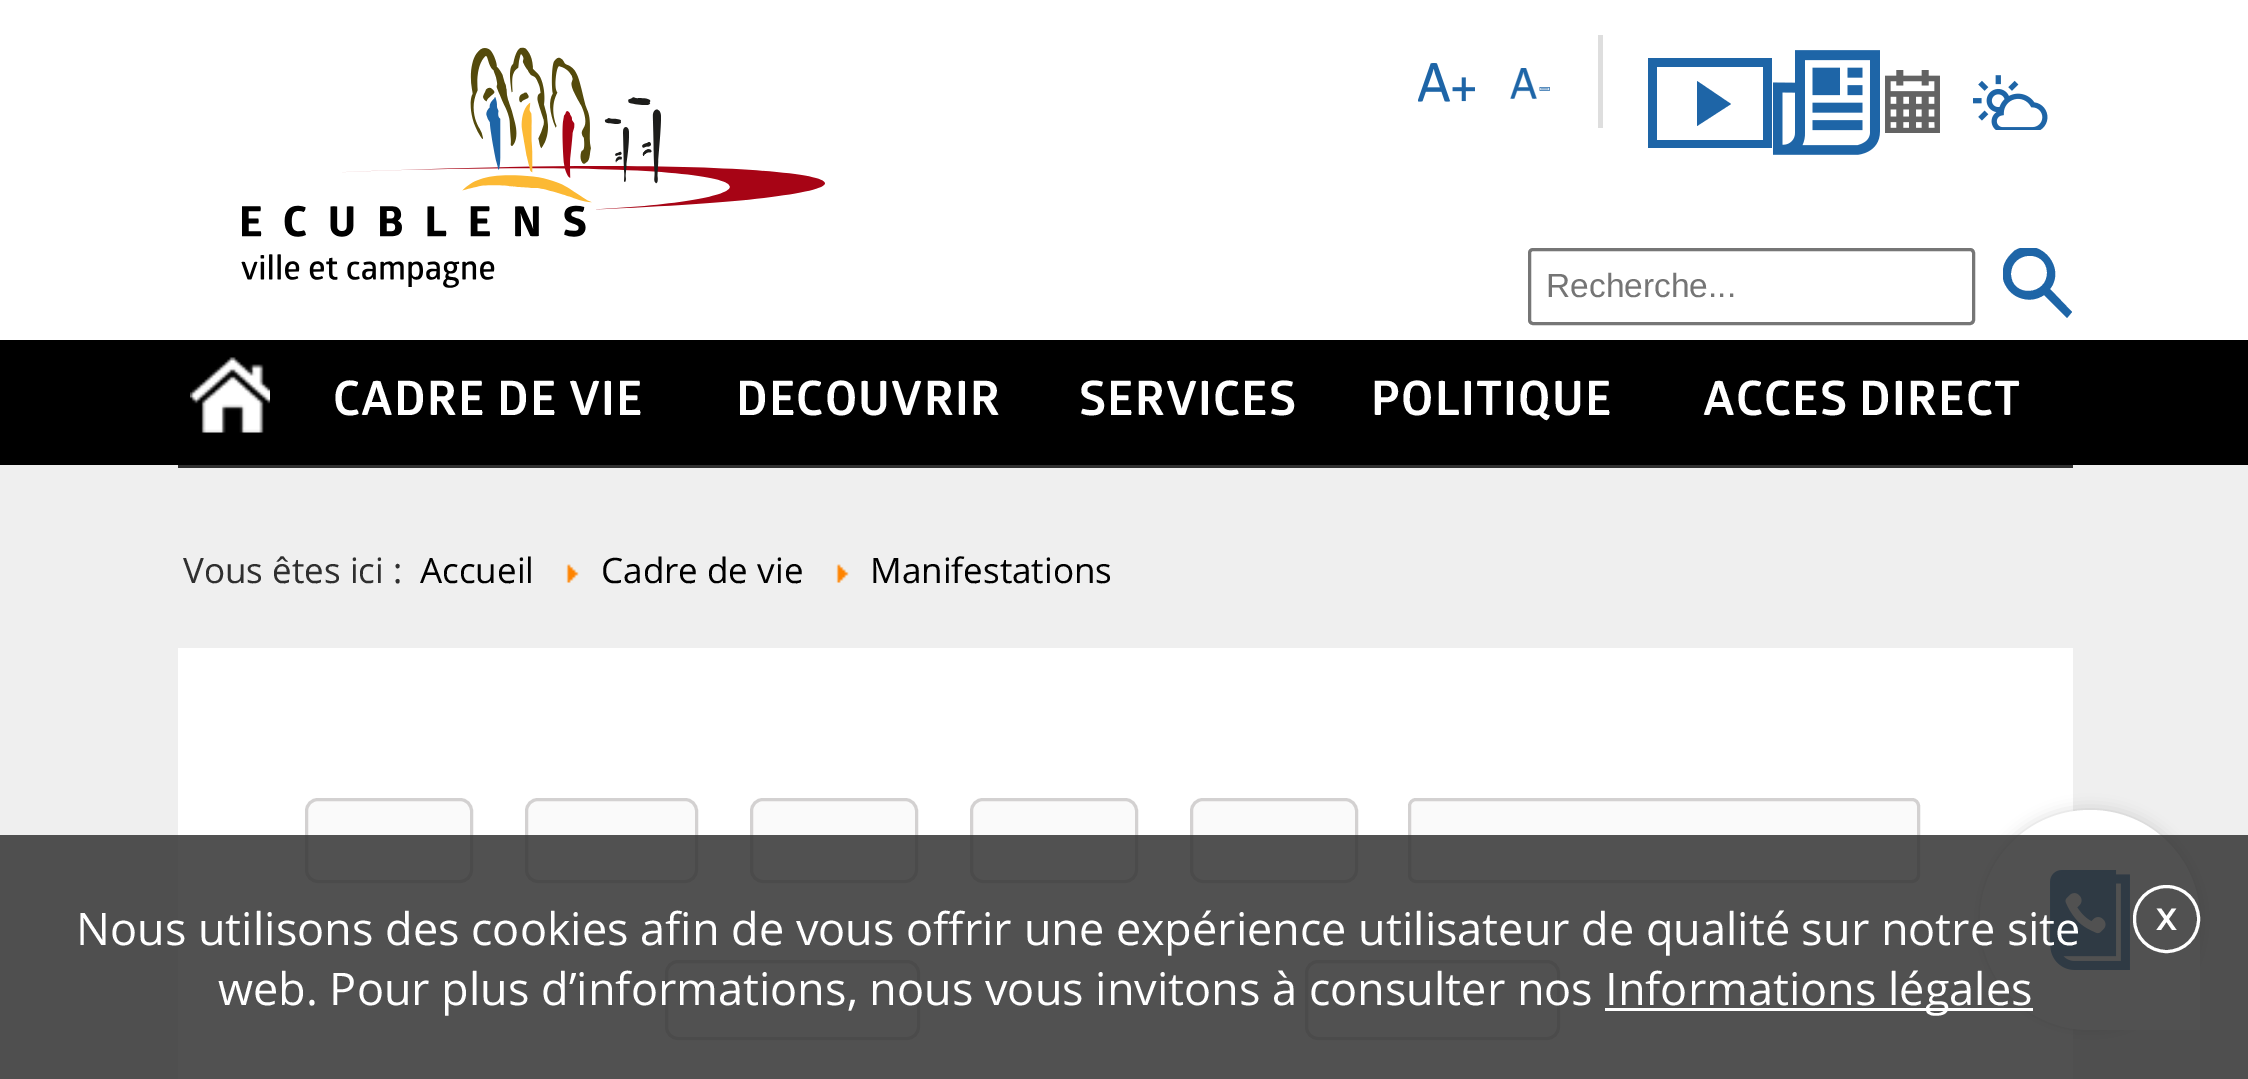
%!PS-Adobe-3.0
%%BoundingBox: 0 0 2248 1079
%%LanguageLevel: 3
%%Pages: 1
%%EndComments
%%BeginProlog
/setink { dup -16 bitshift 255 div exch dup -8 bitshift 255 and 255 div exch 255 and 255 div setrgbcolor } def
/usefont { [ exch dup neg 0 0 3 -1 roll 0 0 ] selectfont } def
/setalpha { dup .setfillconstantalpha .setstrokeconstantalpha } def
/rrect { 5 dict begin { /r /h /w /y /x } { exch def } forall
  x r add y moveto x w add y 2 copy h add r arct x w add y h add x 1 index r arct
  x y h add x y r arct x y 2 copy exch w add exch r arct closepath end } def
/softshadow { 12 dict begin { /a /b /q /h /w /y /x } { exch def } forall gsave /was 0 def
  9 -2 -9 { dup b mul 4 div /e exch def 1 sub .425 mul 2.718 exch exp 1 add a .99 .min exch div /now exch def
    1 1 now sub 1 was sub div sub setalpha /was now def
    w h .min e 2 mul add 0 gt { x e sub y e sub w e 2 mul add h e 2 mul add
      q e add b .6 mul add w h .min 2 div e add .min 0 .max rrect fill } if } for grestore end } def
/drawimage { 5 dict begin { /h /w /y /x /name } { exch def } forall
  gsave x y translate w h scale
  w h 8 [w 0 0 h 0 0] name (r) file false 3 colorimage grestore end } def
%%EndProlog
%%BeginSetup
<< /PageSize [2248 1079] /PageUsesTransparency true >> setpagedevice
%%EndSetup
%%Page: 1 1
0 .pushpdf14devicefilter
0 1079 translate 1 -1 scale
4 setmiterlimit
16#EFEFEF setink
0 0 2248 1079 rectfill
16#303030 setink
178 465 1895 3 rectfill
16#FFFFFF setink
0 0 2248 340 rectfill
(img1.raw) 241 47 584 241 drawimage
(img2.raw) 1418 63 57 39 drawimage
(img3.raw) 1510 68 40 31 drawimage
16#DEDEDE setink
1598 35 5 93 rectfill
gsave
1648 58 125 90 rectclip
16#1E65A7 setink
1648 58 moveto 1648 150 lineto 1772 150 lineto 1772 58 lineto closepath 1763 140 moveto 1657 140 lineto 1657 67 lineto 1763 67 lineto closepath 1697 81 moveto 1697 126 lineto 1731 104 lineto closepath eofill
grestore
(img4.raw) 1773 50 107 105 drawimage
(img5.raw) 1885 70 55 63 drawimage
(img6.raw) 1973 75 75 55 drawimage
16#767676 setink
3 setlinewidth
1529.5 249.5 444 74 3.5 rrect stroke
/LiberationSans-Regular 33.5 usefont
16#757575 setink
1546 297 moveto (Recherche...) show
gsave
2003 248 70 70 rectclip
16#1E65A7 setink
2072 312 moveto 2050 289 lineto 2067 267 2039 235 2014 251 curveto 2010 255 2006 259 2004 265 curveto 2002 272 2002 280 2006 286 curveto 2013 299 2031 304 2044 295 curveto 2067 318 lineto closepath 2011 274 moveto 2011 251 2046 249 2047 272 curveto 2048 296 2011 298 2011 274 curveto closepath eofill
grestore
16#000000 setink
0 340 2248 125 rectfill
(img7.raw) 190 357 80 76 drawimage
/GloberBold-Bold 47.5 usefont
16#FFFFFF setink
333 415 moveto 1.25 0 (CADRE DE VIE) ashow
736 415 moveto 1.25 0 (DECOUVRIR) ashow
1079 415 moveto 1.25 0 (SERVICES) ashow
1371 415 moveto 1.25 0 (POLITIQUE) ashow
1703 415 moveto 1.25 0 (ACCES DIRECT) ashow
/OpenSans-Regular 35 usefont
16#2F2F2F setink
183 583 moveto (Vous êtes ici :) show
16#000000 setink
420 583 moveto (Accueil) show
(img8.raw) 566 564 13 19 drawimage
601 583 moveto (Cadre de vie) show
(img8.raw) 836 564 13 19 drawimage
870 583 moveto (Manifestations) show
16#FFFFFF setink
178 648 1895 431 rectfill
16#FAFAFA setink
306.5 799.5 165 82 11.5 rrect gsave fill grestore
16#D3D1D1 setink
stroke
16#FAFAFA setink
526.5 799.5 170 82 11.5 rrect gsave fill grestore
16#D3D1D1 setink
stroke
16#FAFAFA setink
751.5 799.5 165 82 11.5 rrect gsave fill grestore
16#D3D1D1 setink
stroke
16#FAFAFA setink
971.5 799.5 165 82 11.5 rrect gsave fill grestore
16#D3D1D1 setink
stroke
16#FAFAFA setink
1191.5 799.5 165 82 11.5 rrect gsave fill grestore
16#D3D1D1 setink
stroke
16#FAFAFA setink
1409.5 799.5 509 82 6.5 rrect gsave fill grestore
16#D3D1D1 setink
stroke
16#FAFAFA setink
666.5 961.5 252 77 11.5 rrect gsave fill grestore
16#D3D1D1 setink
stroke
16#FAFAFA setink
1306.5 961.5 252 77 11.5 rrect gsave fill grestore
16#D3D1D1 setink
stroke
16#000000 setink
1980 810 220 220 110 7.5 0.16 softshadow
16#FFFFFF setink
2090 810 moveto 2151 810 2200 859 2200 920 curveto 2200 1030 lineto 2090 1030 lineto 2029 1030 1980 981 1980 920 curveto 1980 859 2029 810 2090 810 curveto closepath fill
(img9.raw) 2050 870 80 100 drawimage
0.85 setalpha
16#333333 setink
0 835 2248 244 rectfill
/OpenSans-Regular 45 usefont
1 setalpha
16#FFFFFF setink
76 945 moveto (Nous utilisons des cookies afin de vous offrir une expérience utilisateur de qualité sur notre site) show
218 1005 moveto (web. Pour plus d’informations, nous vous invitons à consulter nos) show
1605 1008 428 3 rectfill
1605 1005 moveto (Informations légales) show
2134.5 886.5 64 65 32 rrect stroke
/OpenSans-Bold 38 usefont
2156 930 moveto (x) show
.poppdf14devicefilter showpage
%%EOF
